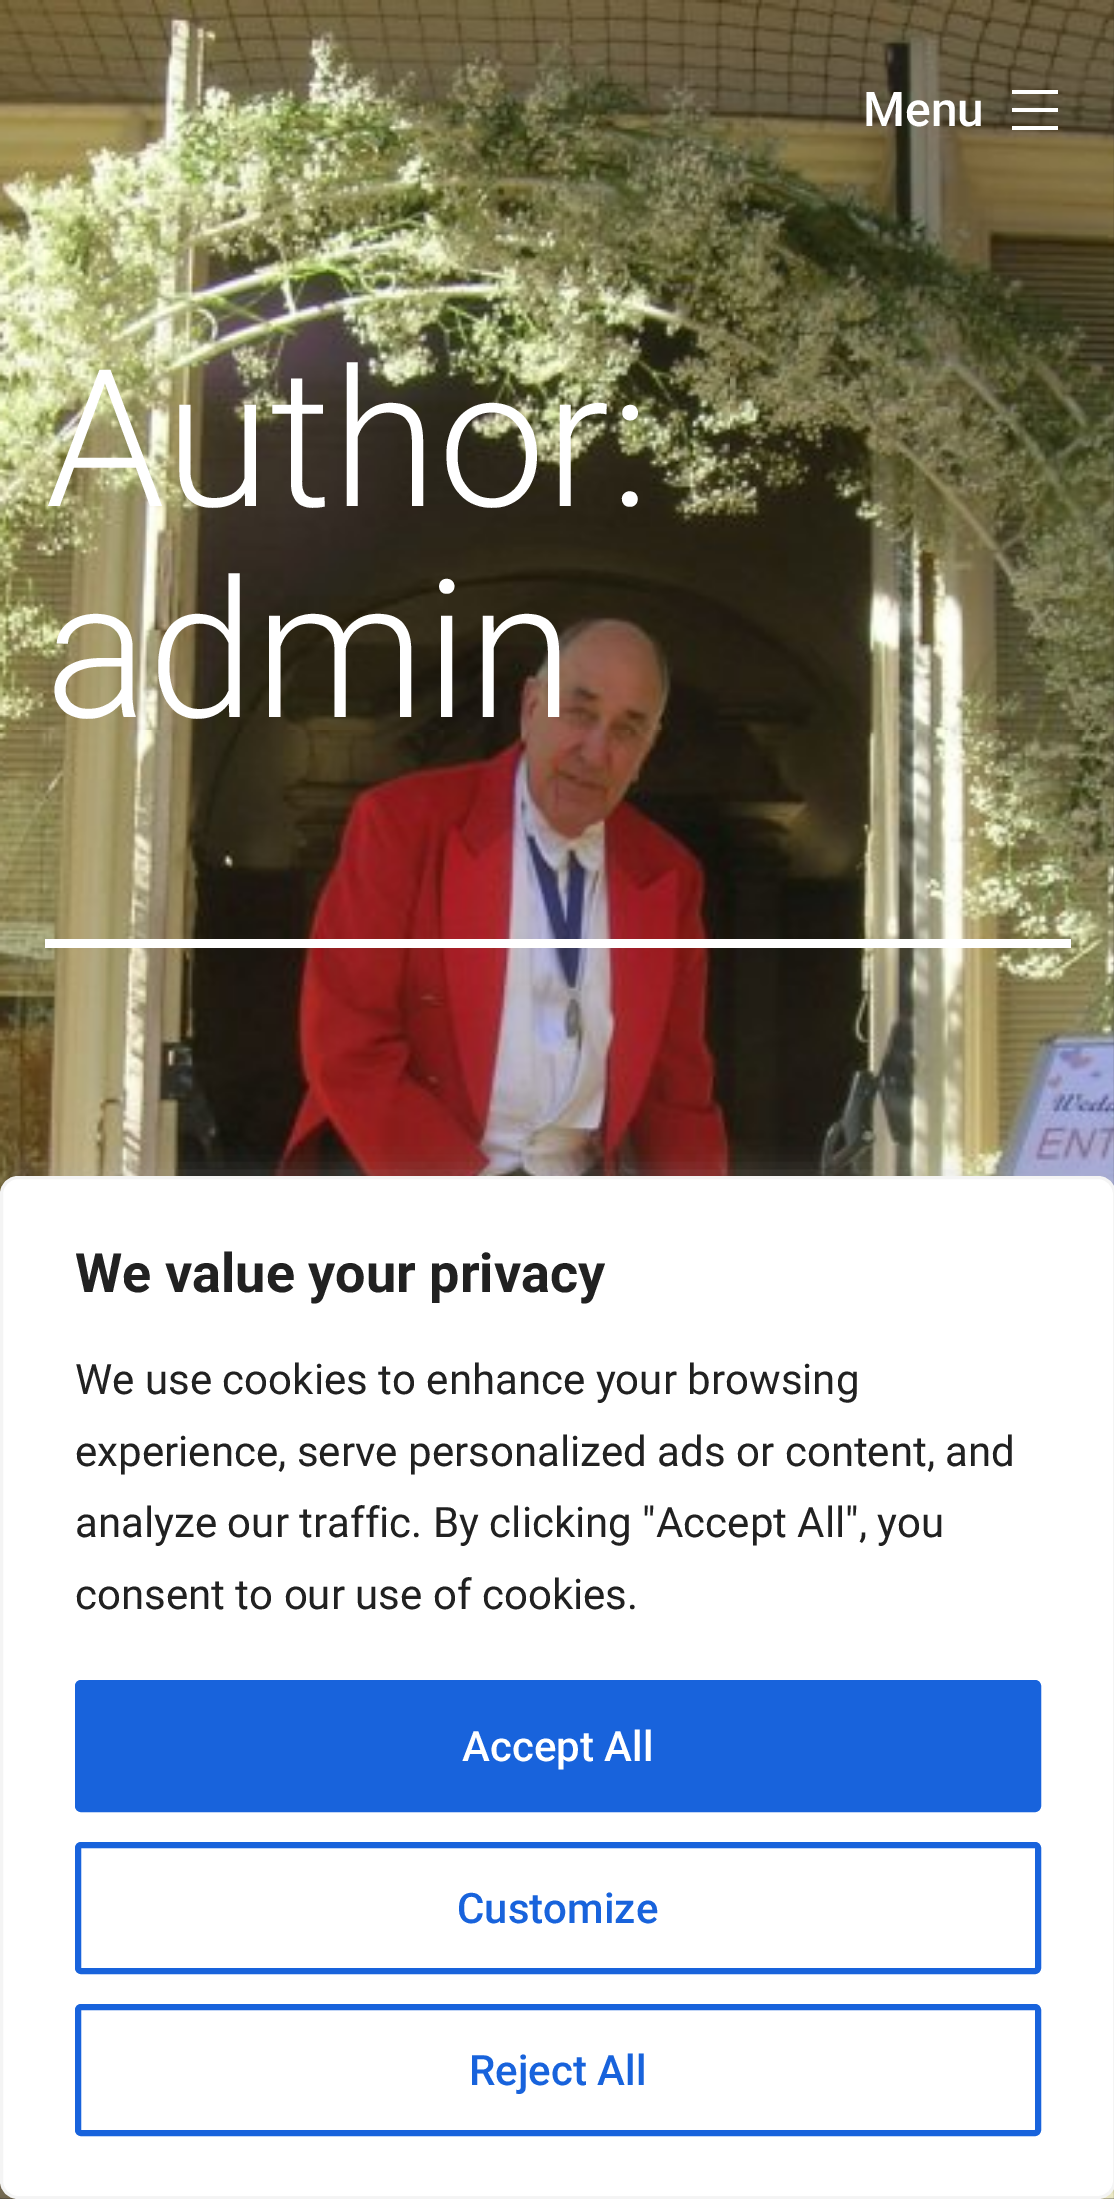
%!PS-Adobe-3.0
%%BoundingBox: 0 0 1114 2199
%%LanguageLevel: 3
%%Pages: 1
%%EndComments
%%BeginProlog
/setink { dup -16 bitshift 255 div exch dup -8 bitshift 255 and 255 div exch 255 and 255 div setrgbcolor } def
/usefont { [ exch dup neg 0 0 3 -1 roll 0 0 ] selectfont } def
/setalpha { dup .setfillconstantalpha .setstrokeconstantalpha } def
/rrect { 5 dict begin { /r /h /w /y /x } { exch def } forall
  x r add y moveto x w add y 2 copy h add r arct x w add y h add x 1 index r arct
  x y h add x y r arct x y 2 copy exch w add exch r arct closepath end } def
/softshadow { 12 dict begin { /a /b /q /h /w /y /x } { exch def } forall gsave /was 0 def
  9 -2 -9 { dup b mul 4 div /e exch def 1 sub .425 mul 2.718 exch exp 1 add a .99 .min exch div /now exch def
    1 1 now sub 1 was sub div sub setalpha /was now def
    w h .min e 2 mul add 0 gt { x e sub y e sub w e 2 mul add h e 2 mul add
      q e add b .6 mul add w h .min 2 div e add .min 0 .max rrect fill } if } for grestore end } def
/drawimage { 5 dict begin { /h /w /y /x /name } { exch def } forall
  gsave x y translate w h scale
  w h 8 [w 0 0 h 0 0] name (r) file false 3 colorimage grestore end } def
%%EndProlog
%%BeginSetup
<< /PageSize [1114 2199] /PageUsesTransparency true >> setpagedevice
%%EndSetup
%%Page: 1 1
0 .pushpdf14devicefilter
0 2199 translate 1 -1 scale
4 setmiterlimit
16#191919 setink
0 0 1114 2199 rectfill
(img1.raw) 0 0 1114 2199 drawimage
/Roboto-Medium 48 usefont
16#FFFFFF setink
863 126 moveto (Menu) show
1012 90 moveto 1058 90 lineto 1058 94 lineto 1012 94 lineto closepath 1012 108 moveto 1058 108 lineto 1058 112 lineto 1012 112 lineto closepath 1058 126 moveto 1012 126 lineto 1012 130 lineto 1058 130 lineto closepath eofill
45 939 1026 9 rectfill
/Roboto-Light 192 usefont
45 506 moveto (Author:) show
45 717 moveto (admin) show
16#ACABAB setink
0 1173 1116 1023 18 15 0.3 softshadow
16#FFFFFF setink
1.5 1177.5 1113 1020 16.5 rrect gsave fill grestore
16#F4F4F4 setink
3 setlinewidth
stroke
/Roboto-Bold 54 usefont
16#212121 setink
75 1292 moveto (We value your privacy) show
/Roboto-Regular 42 usefont
[
    [(We use cookies to enhance your browsing) 75 1394]
    [(experience, serve personalized ads or content, and) 75 1466]
    [(analyze our traffic. By clicking "Accept All", you) 75 1537]
    [(consent to our use of cookies.) 75 1609]
] { aload pop moveto show } forall
16#1863DC setink
78 1683 960 126 3 rrect gsave fill grestore
6 setlinewidth
stroke
/Roboto-Medium 42 usefont
16#FFFFFF setink
462 1761 moveto (Accept All) show
16#1863DC setink
78 1845 960 126 3 rrect stroke
457 1923 moveto (Customize) show
78 2007 960 126 3 rrect stroke
469 2085 moveto (Reject All) show
.poppdf14devicefilter showpage
%%EOF
